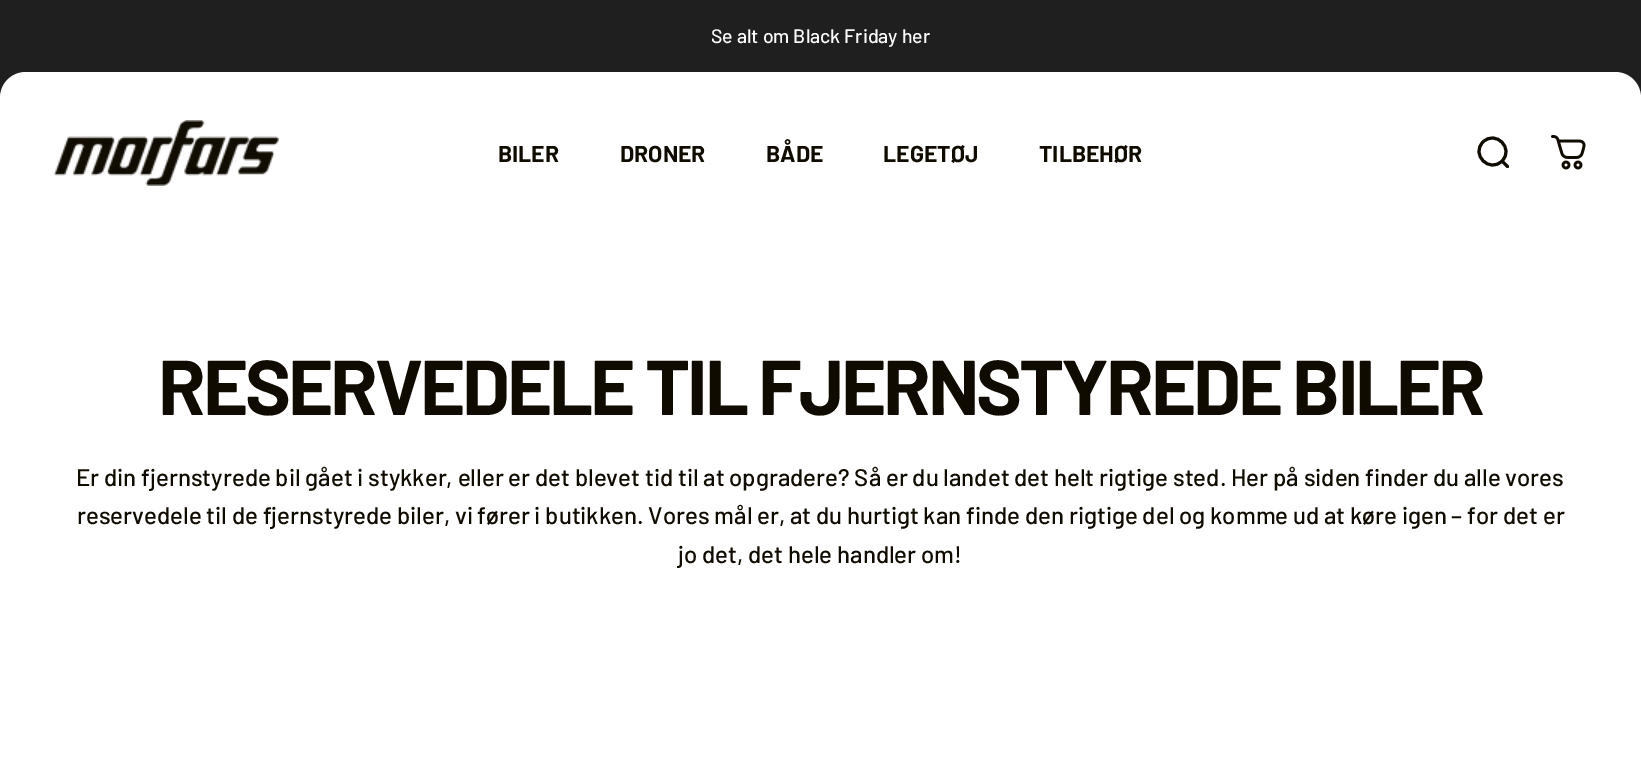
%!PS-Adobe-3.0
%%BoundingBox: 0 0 1641 758
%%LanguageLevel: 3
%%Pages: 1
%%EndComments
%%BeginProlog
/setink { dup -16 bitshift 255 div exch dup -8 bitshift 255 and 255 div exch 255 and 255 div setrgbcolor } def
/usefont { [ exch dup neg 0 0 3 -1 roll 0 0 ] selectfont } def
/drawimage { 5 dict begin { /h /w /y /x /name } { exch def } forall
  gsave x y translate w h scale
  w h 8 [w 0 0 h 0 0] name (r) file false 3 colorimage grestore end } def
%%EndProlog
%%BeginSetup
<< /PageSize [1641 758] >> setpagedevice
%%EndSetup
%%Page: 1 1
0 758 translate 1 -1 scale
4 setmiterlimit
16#FFFFFF setink
0 0 1641 758 rectfill
16#1F1F1F setink
0 0 1641 26 rectfill
26 0 moveto 1615 0 lineto 1629.5 0 1641 11.5 1641 26 curveto 1641 98 lineto 0 98 lineto 0 26 lineto 0 11.5 11.5 0 26 0 curveto closepath fill
/Barlow-Medium 19.5 usefont
16#FAFAFA setink
711 43 moveto (Se alt om Black Friday her) show
16#FFFFFF setink
26 72 moveto 1615 72 lineto 1629.5 72 1641 83.5 1641 98 curveto 1641 234 lineto 0 234 lineto 0 98 lineto 0 83.5 11.5 72 26 72 curveto closepath fill
(img1.raw) 54 120 225 66 drawimage
/Barlow-Bold 23 usefont
16#100B00 setink
[
    [(BILER) 498 162]
    [(DRONER) 620 162]
    [(BÅDE) 766 162]
    [(LEGETØJ) 883 162]
    [(TILBEHØR) 1039 162]
] { aload pop moveto show } forall
3 setlinewidth
1 setlinecap
1507.5 166.5 moveto 1502 161 lineto 1502 161 moveto 1514.5 148.5 1495.5 129.5 1483 142 curveto 1470.5 154.5 1489.5 173.5 1502 161 curveto closepath stroke
(img2.raw) 1551 135 35 35 drawimage
/Barlow-Bold 77.6 usefont
158 415 moveto -3.1 0 (RESERVEDELE TIL FJERNSTYREDE BILER) ashow
/Barlow-Medium 24 usefont
[
    [(Er din fjernstyrede bil gået i stykker, eller er det blevet tid til at opgradere? Så er du landet det helt rigtige sted. Her på siden finder du alle vores) 76 486]
    [(reservedele til de fjernstyrede biler, vi fører i butikken. Vores mål er, at du hurtigt kan finde den rigtige del og komme ud at køre igen – for det er) 77 524]
    [(jo det, det hele handler om!) 678 563]
] { aload pop moveto show } forall
showpage
%%EOF
